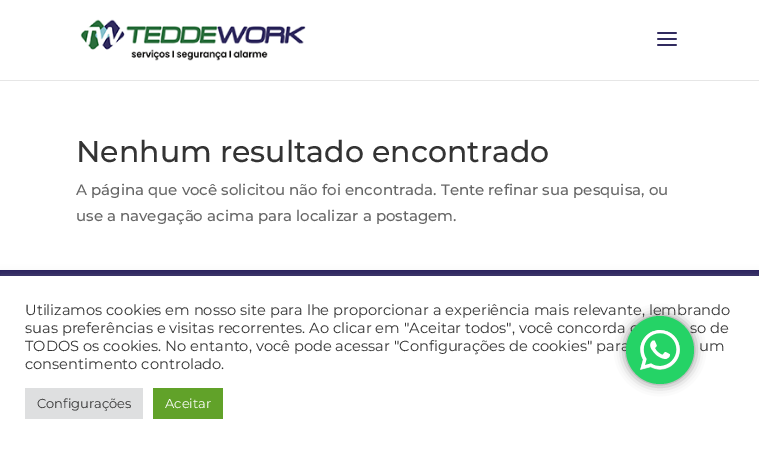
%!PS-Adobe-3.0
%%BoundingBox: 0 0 759 449
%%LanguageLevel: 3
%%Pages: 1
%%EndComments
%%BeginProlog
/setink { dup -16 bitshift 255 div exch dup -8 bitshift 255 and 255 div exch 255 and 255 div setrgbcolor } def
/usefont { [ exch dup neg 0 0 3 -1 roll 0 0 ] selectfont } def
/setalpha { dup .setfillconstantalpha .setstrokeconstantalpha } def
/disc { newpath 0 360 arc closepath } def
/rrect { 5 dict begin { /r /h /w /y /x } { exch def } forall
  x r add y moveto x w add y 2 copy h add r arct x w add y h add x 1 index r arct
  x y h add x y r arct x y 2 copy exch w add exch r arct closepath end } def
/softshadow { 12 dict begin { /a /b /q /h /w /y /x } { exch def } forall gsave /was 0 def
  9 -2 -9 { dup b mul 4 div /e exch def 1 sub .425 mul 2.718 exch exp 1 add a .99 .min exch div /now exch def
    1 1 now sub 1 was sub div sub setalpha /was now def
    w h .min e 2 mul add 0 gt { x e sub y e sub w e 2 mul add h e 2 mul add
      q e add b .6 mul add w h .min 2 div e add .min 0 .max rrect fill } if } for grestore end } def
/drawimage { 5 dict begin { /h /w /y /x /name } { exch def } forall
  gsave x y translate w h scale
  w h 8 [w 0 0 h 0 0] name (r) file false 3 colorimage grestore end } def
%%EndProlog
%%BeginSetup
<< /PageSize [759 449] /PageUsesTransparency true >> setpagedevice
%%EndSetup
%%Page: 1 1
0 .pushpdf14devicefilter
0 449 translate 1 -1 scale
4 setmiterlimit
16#FFFFFF setink
0 0 759 449 rectfill
16#E6E6E6 setink
0 80 759 1 rectfill
(img1.raw) 80 19 226 42 drawimage
(img2.raw) 657 32 20 14 drawimage
/Montserrat-Medium 30 usefont
16#333333 setink
76 162 moveto (Nenhum resultado encontrado) show
/Montserrat-Medium 15 usefont
16#666666 setink
76 195 moveto (A página que você solicitou não foi encontrada. Tente refinar sua pesquisa, ou) show
76 221 moveto (use a navegação acima para localizar a postagem.) show
16#261E5B setink
0 270 759 6 rectfill
16#ACABAB setink
0 275 759 173 0 5 0.3 softshadow
16#FFFFFF setink
0 276 759 173 rectfill
16#000000 setink
626 316 68 68 34 5.5 0.5 softshadow
/Montserrat-Regular 14.65 usefont
16#333333 setink
[
    [(Utilizamos cookies em nosso site para lhe proporcionar a experiência mais relevante, lembrando) 25 315]
    [(suas preferências e visitas recorrentes. Ao clicar em "Aceitar todos", você concorda c) 25 333]
    [(so de) 690 333]
    [(TODOS os cookies. No entanto, você pode acessar "Configurações de cookies" para) 25 351]
] { aload pop moveto show } forall
16#25D366 setink
660 350 34 disc fill
(img3.raw) 640 330 40 40 drawimage
16#333333 setink
699 351 moveto (um) show
25 369 moveto (consentimento controlado.) show
16#DEDFE0 setink
25 388 118 31 rectfill
/Montserrat-Regular 13 usefont
16#333333 setink
37 408 moveto (Configurações) show
16#61A229 setink
153 388 70 31 rectfill
16#FFFFFF setink
165 408 moveto (Aceitar) show
.poppdf14devicefilter showpage
%%EOF
